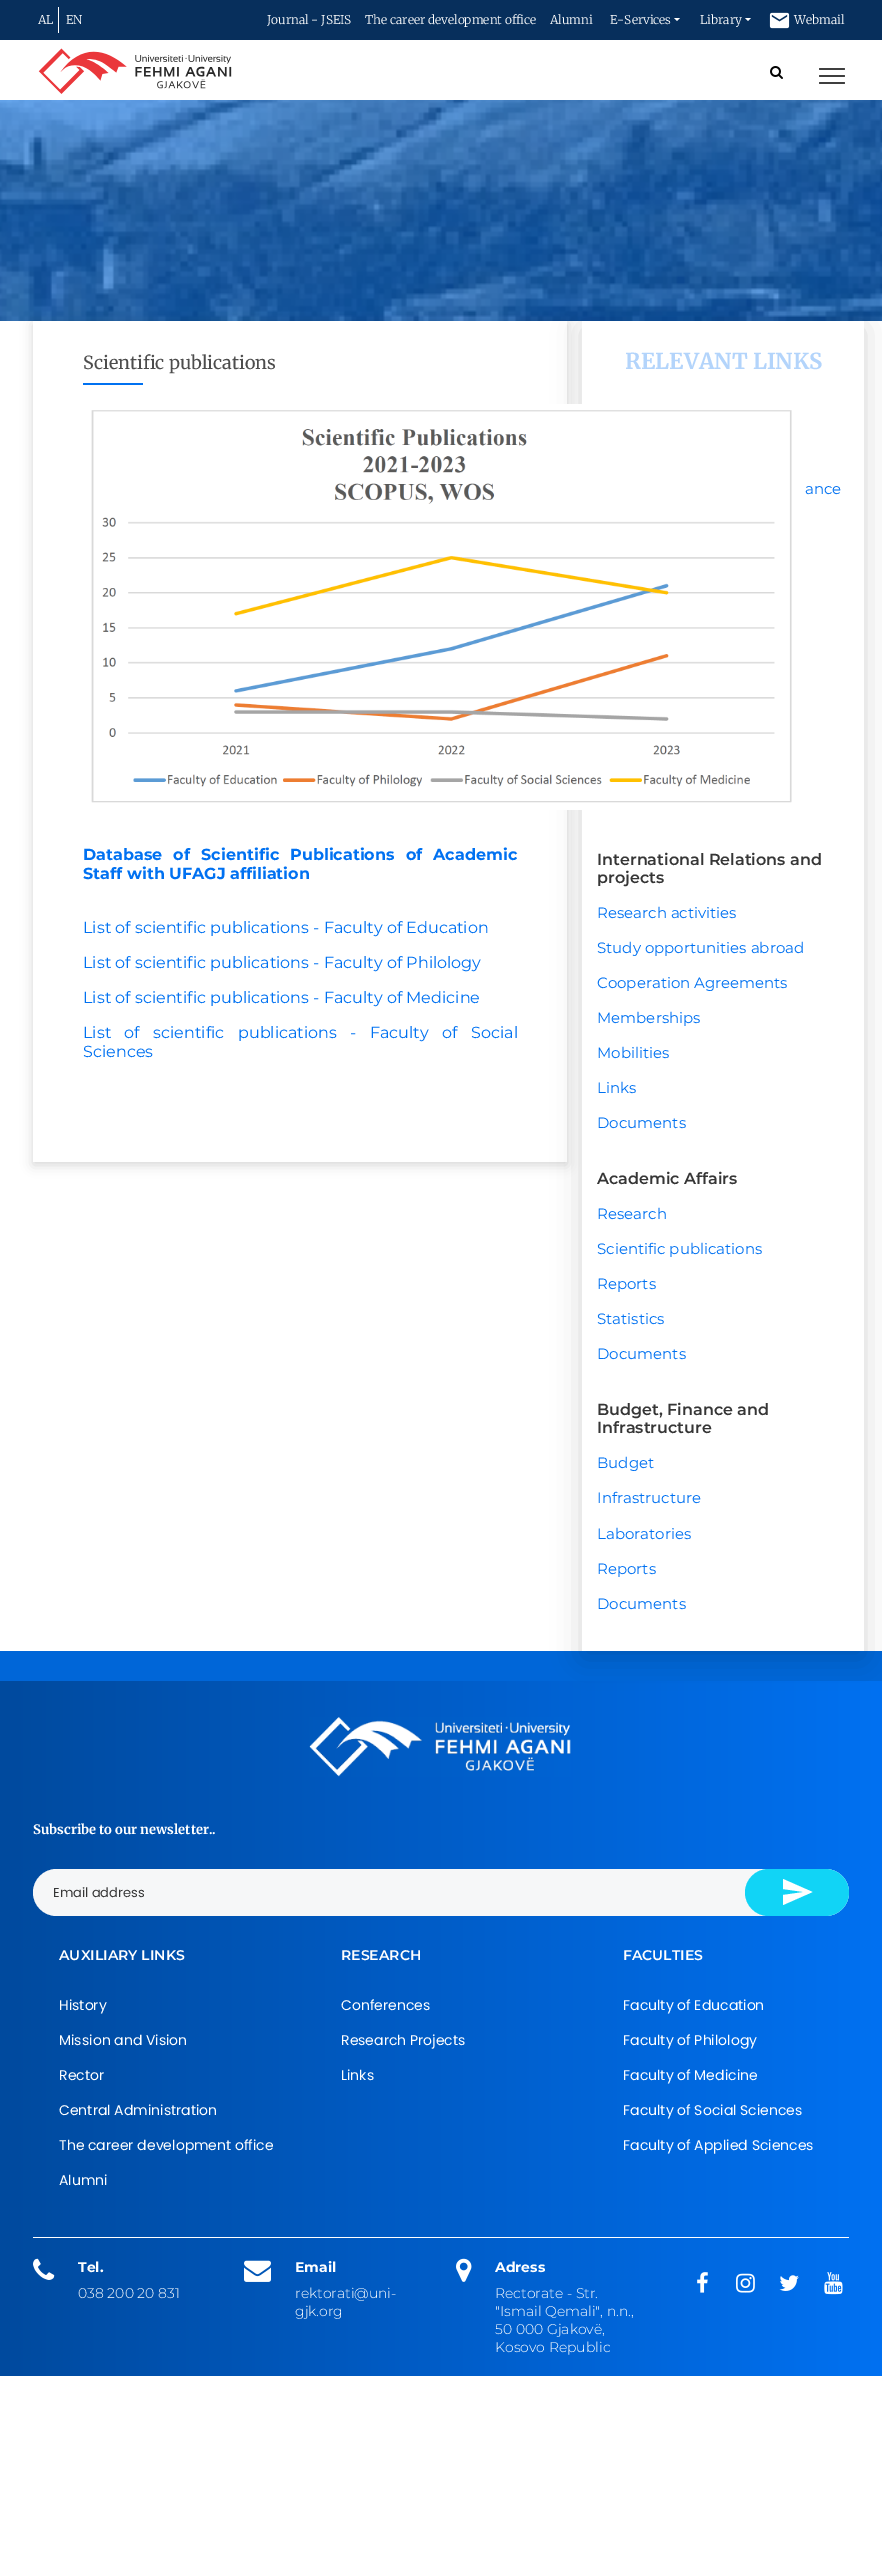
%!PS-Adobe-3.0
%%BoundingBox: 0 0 882 2557
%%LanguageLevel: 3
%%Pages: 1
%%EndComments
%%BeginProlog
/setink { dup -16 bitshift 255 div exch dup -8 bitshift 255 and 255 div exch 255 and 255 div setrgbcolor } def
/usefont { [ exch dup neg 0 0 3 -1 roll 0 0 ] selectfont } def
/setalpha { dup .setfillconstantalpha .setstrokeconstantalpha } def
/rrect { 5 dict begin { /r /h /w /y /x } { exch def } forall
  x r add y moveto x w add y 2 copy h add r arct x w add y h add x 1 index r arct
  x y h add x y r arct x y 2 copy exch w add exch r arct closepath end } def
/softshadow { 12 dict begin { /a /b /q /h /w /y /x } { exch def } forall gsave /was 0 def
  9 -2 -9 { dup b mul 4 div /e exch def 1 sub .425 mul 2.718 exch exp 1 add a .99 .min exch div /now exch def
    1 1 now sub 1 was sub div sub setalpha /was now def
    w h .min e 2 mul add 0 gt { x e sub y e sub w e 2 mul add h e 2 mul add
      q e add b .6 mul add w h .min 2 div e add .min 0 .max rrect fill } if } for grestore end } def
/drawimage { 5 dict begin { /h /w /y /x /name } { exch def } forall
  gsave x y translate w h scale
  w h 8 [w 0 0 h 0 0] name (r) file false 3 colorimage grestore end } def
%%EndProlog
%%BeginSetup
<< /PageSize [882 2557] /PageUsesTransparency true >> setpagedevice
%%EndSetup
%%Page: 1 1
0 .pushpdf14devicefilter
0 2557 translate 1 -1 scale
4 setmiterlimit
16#FFFFFF setink
0 0 882 2557 rectfill
16#072F5C setink
0 0 882 40 rectfill
16#FFFFFF setink
58 7 1 26 rectfill
/Merriweather-Light 12 usefont
[
    [(AL) 38 24]
    [(EN) 66 24]
    [(Journal - JSEIS) 267 24]
    [(The career development office) 365 24]
    [(Alumni) 550 24]
    [(E-Services) 610 24]
] { aload pop moveto show } forall
674 18 moveto 680 18 lineto 677 21 lineto closepath fill
700 24 moveto (Library) show
745 18 moveto 751 18 lineto 748 21 lineto closepath fill
(img1.raw) 769 12 21 17 drawimage
794 24 moveto (Webmail) show
(img2.raw) 38 48 194 46 drawimage
16#3F3F3F setink
819 68 26 2 1 rrect fill
819 75 26 2 1 rrect fill
819 82 26 2 1 rrect fill
(img3.raw) 770 66 13 13 drawimage
(img4.raw) 0 100 882 221 drawimage
gsave
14 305 moveto 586 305 lineto 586 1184 lineto 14 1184 lineto closepath 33 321 moveto 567 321 lineto 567 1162 lineto 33 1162 lineto closepath eoclip newpath
16#000000 setink
33 324 534 841 0 6 0.16 softshadow
grestore
/Merriweather-Regular 18 usefont
16#4D4D4D setink
83 369 moveto (Scientific publications) show
16#0071F1 setink
83 383 60 2 rectfill
gsave 0 1681 moveto 882 1681 lineto 882 2376 lineto 0 2376 lineto closepath clip newpath
<< /ShadingType 2 /ColorSpace /DeviceRGB /Coords [882 2029 0 2029] /Extend [true true] /Function << /FunctionType 2 /Domain [0 1] /C0 [0 0.443 0.945] /C1 [0 0.29 0.62] /N 1 >> >> shfill grestore
16#0066D8 setink
0 1651 882 30 rectfill
gsave
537 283 moveto 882 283 lineto 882 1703 lineto 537 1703 lineto closepath 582 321 moveto 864 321 lineto 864 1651 lineto 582 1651 lineto closepath eoclip newpath
16#000000 setink
582 328 282 1330 0 14.5 0.16 softshadow
grestore
(img5.raw) 91 404 712 406 drawimage
/Montserrat-Bold 16 usefont
16#0071F1 setink
83 860 moveto 6.5 0 32 (Database of Scientific Publications of Academic) widthshow
83 879 moveto (Staff with UFAGJ affiliation) show
/Montserrat-Regular 16 usefont
[
    [(List of scientific publications - Faculty of Education) 83 933]
    [(List of scientific publications - Faculty of Philology) 83 968]
    [(List of scientific publications - Faculty of Medicine) 83 1003]
] { aload pop moveto show } forall
83 1038 moveto 9.25 0 32 (List of scientific publications - Faculty of Social) widthshow
83 1057 moveto (Sciences) show
/Merriweather-Bold 22 usefont
16#B3D4FB setink
625 369 moveto (RELEVANT LINKS) show
/Montserrat-Regular 15 usefont
16#0071F1 setink
805 494 moveto (ance) show
/Montserrat-SemiBold 16 usefont
16#363636 setink
597 865 moveto (International Relations and) show
597 883 moveto (projects) show
/Montserrat-Regular 15 usefont
16#0071F1 setink
[
    [(Research activities) 597 918]
    [(Study opportunities abroad) 597 953]
    [(Cooperation Agreements) 597 988]
    [(Memberships) 597 1023]
    [(Mobilities) 597 1058]
    [(Links) 597 1093]
    [(Documents) 597 1128]
] { aload pop moveto show } forall
/Montserrat-SemiBold 16 usefont
16#363636 setink
597 1184 moveto (Academic Affairs) show
/Montserrat-Regular 15 usefont
16#0071F1 setink
[
    [(Research) 597 1219]
    [(Scientific publications) 597 1254]
    [(Reports) 597 1289]
    [(Statistics) 597 1324]
    [(Documents) 597 1359]
] { aload pop moveto show } forall
/Montserrat-SemiBold 16 usefont
16#363636 setink
597 1415 moveto (Budget, Finance and) show
597 1433 moveto (Infrastructure) show
/Montserrat-Regular 15 usefont
16#0071F1 setink
[
    [(Budget) 597 1468]
    [(Infrastructure) 597 1503]
    [(Laboratories) 597 1539]
    [(Reports) 597 1574]
    [(Documents) 597 1609]
] { aload pop moveto show } forall
(img6.raw) 309 1717 262 60 drawimage
/Merriweather-Bold 13 usefont
16#FFFFFF setink
33 1834 moveto (Subscribe to our newsletter..) show
16#F6F7F8 setink
33 1869 816 47 23.5 rrect fill
/Poppins-Regular 13 usefont
16#363636 setink
53 1897 moveto (Email address) show
16#11D4F6 setink
745 1869 104 47 23.5 rrect fill
16#FFFFFF setink
783 1905 moveto 812.5 1892 lineto 783 1879 lineto 783 1889 lineto 804 1892 lineto 783 1895 lineto closepath fill
/Montserrat-SemiBold 14 usefont
59 1960 moveto (AUXILIARY LINKS) show
/Poppins-Regular 14 usefont
[
    [(History) 59 2010]
    [(Mission and Vision) 59 2045]
    [(Rector) 59 2080]
    [(Central Administration) 59 2115]
    [(The career development office) 59 2150]
    [(Alumni) 59 2185]
] { aload pop moveto show } forall
/Montserrat-SemiBold 14 usefont
341 1960 moveto (RESEARCH) show
/Poppins-Regular 14 usefont
[
    [(Conferences) 341 2010]
    [(Research Projects) 341 2045]
    [(Links) 341 2080]
] { aload pop moveto show } forall
/Montserrat-SemiBold 14 usefont
623 1960 moveto (FACULTIES) show
/Poppins-Regular 14 usefont
[
    [(Faculty of Education) 623 2010]
    [(Faculty of Philology) 623 2045]
    [(Faculty of Medicine) 623 2080]
    [(Faculty of Social Sciences) 623 2115]
    [(Faculty of Applied Sciences) 623 2150]
] { aload pop moveto show } forall
33 2237 816 1 rectfill
(img7.raw) 33 2258 22 22 drawimage
/Montserrat-Bold 14 usefont
78 2272 moveto (Tel.) show
/Montserrat-Light 14 usefont
78 2298 moveto (038 200 20 831) show
(img8.raw) 244 2260 27 22 drawimage
/Montserrat-Bold 14 usefont
295 2272 moveto (Email) show
/Montserrat-Light 14 usefont
295 2298 moveto (rektorati@uni-) show
295 2316 moveto (gjk.org) show
(img9.raw) 456 2258 16 24 drawimage
/Montserrat-Bold 14 usefont
495 2272 moveto (Adress) show
/Montserrat-Light 14 usefont
[
    [(Rectorate - Str.) 495 2298]
    [("Ismail Qemali", n.n.,) 495 2316]
    [(50 000 Gjakovë,) 495 2334]
    [(Kosovo Republic) 495 2352]
] { aload pop moveto show } forall
(img10.raw) 697 2272 11 21 drawimage
(img11.raw) 736 2273 19 20 drawimage
(img12.raw) 779 2275 20 16 drawimage
(img13.raw) 824 2272 19 23 drawimage
.poppdf14devicefilter showpage
%%EOF
